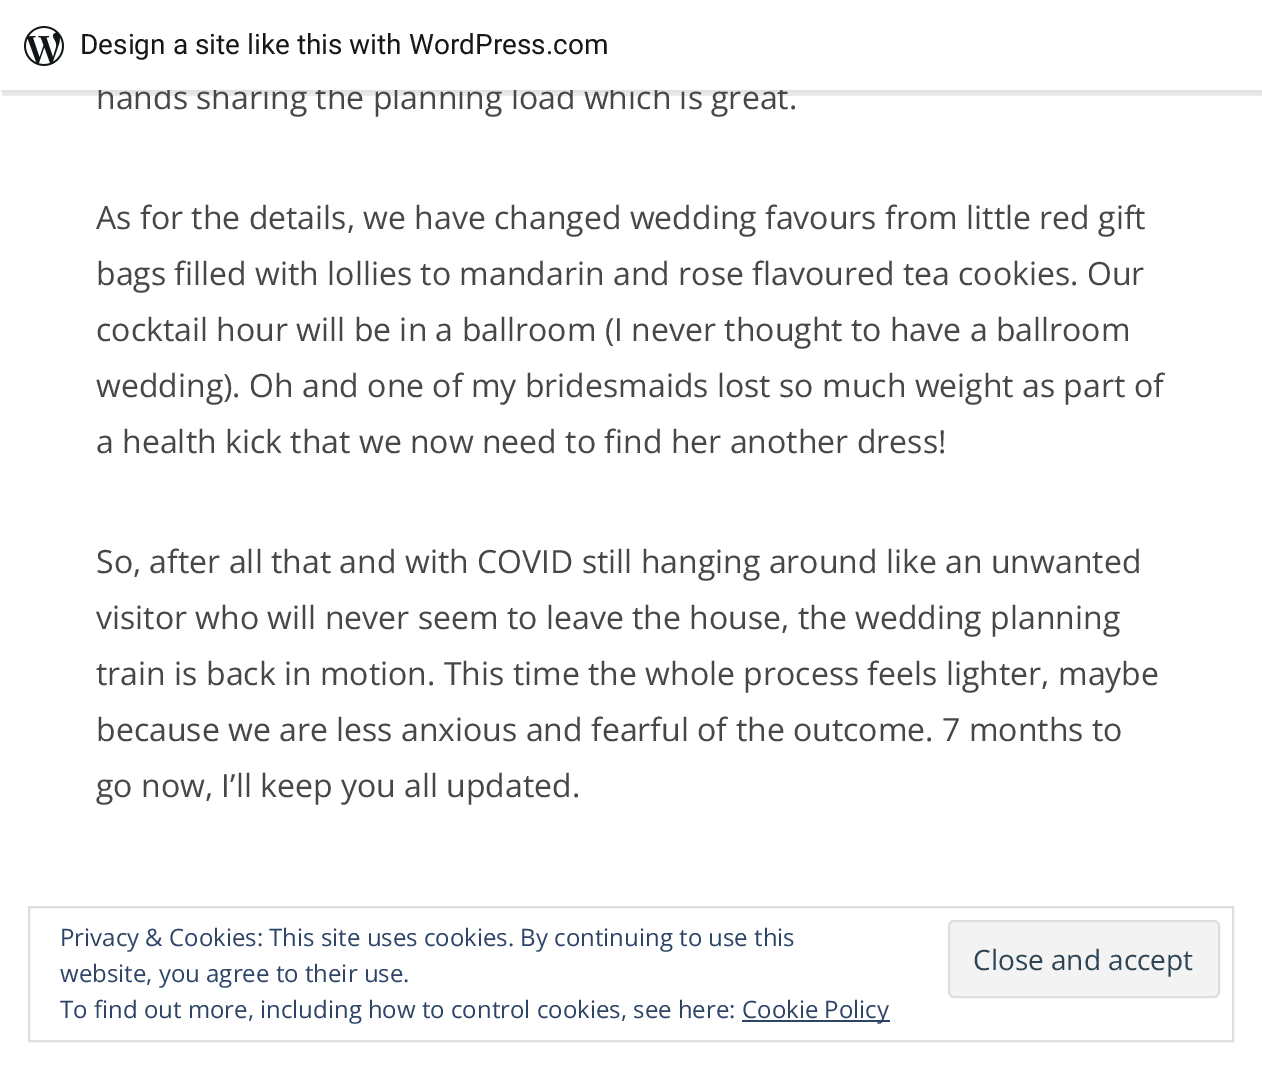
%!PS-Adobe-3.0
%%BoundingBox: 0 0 1262 1070
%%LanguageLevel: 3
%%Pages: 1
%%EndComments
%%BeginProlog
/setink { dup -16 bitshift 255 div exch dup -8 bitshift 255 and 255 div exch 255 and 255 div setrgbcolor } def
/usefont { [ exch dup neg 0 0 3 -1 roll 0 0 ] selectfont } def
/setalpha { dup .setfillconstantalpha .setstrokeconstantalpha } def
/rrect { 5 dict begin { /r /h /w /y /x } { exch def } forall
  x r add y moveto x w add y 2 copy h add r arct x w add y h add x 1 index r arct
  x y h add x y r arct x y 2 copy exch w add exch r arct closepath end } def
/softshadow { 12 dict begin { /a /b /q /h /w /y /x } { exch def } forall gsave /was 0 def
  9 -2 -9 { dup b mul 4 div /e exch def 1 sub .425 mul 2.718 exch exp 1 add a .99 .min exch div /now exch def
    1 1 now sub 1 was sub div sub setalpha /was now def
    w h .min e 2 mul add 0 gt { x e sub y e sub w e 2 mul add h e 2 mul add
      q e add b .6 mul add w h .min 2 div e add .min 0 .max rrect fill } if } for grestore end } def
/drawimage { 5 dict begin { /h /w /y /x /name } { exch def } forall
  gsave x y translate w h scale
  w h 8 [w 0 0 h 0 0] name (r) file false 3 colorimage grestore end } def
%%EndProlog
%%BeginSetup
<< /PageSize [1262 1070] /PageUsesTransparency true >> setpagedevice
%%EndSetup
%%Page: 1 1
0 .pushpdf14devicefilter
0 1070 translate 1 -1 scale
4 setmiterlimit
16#FFFFFF setink
0 0 1262 1070 rectfill
16#000000 setink
0 2 1262 90 0 2 0.05 softshadow
0.08 setalpha
2 90 moveto 2 96 lineto 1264 96 lineto 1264 6 lineto 1262 6 lineto 1262 90 lineto closepath fill
/OpenSans-Regular 32 usefont
1 setalpha
16#474747 setink
96 109 moveto (hands sharing the planning load which is great.) show
16#FFFFFF setink
0 0 1262 90 rectfill
(img1.raw) 24 26 40 40 drawimage
/Roboto-Regular 28 usefont
16#171717 setink
80 54 moveto (Design a site like this with WordPress.com) show
/OpenSans-Regular 32 usefont
16#474747 setink
[
    [(As for the details, we have changed wedding favours from little red gift) 96 229]
    [(bags filled with lollies to mandarin and rose flavoured tea cookies. Our) 96 285]
    [(cocktail hour will be in a ballroom \(I never thought to have a ballroom) 96 341]
    [(wedding\). Oh and one of my bridesmaids lost so much weight as part of) 96 397]
    [(a health kick that we now need to find her another dress!) 96 453]
    [(So, after all that and with COVID still hanging around like an unwanted) 96 573]
    [(visitor who will never seem to leave the house, the wedding planning) 96 629]
    [(train is back in motion. This time the whole process feels lighter, maybe) 96 685]
    [(because we are less anxious and fearful of the outcome. 7 months to) 96 741]
    [(go now, I’ll keep you all updated.) 96 797]
] { aload pop moveto show } forall
16#DEDEDE setink
2 setlinewidth
29 907 1204 134 rectstroke
/OpenSans-Regular 24 usefont
16#2E4467 setink
60 946 moveto (Privacy & Cookies: This site uses cookies. By continuing to use this) show
60 982 moveto (website, you agree to their use.) show
16#F3F3F3 setink
949 921 270 76 5 rrect gsave fill grestore
16#DEDEDE setink
stroke
/OpenSans-Regular 28 usefont
16#2E4453 setink
973 970 moveto (Close and accept) show
/OpenSans-Regular 24 usefont
16#2E4467 setink
60 1018 moveto (To find out more, including how to control cookies, see here:) show
742 1020 148 2 rectfill
742 1018 moveto (Cookie Policy) show
.poppdf14devicefilter showpage
%%EOF
